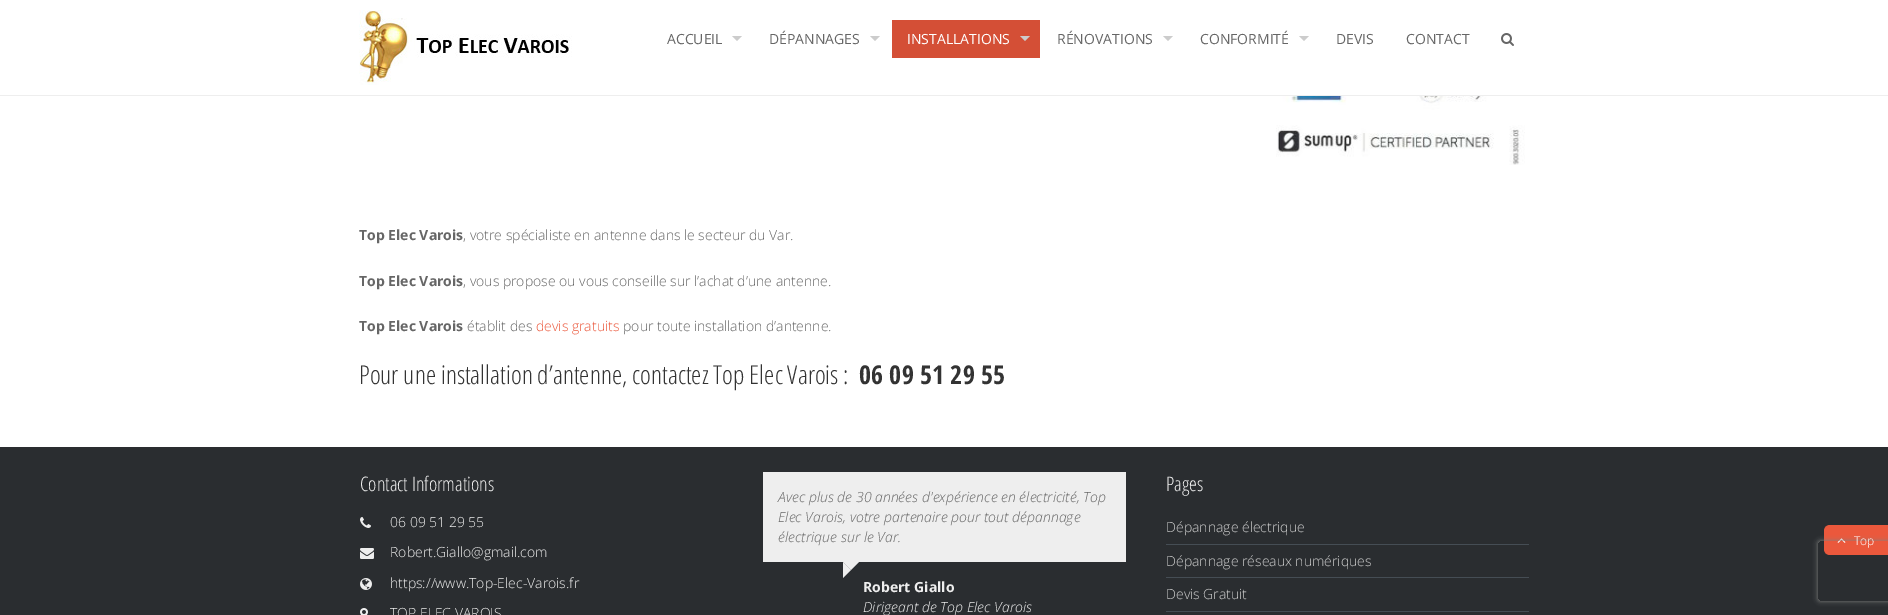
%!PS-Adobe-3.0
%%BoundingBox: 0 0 1888 615
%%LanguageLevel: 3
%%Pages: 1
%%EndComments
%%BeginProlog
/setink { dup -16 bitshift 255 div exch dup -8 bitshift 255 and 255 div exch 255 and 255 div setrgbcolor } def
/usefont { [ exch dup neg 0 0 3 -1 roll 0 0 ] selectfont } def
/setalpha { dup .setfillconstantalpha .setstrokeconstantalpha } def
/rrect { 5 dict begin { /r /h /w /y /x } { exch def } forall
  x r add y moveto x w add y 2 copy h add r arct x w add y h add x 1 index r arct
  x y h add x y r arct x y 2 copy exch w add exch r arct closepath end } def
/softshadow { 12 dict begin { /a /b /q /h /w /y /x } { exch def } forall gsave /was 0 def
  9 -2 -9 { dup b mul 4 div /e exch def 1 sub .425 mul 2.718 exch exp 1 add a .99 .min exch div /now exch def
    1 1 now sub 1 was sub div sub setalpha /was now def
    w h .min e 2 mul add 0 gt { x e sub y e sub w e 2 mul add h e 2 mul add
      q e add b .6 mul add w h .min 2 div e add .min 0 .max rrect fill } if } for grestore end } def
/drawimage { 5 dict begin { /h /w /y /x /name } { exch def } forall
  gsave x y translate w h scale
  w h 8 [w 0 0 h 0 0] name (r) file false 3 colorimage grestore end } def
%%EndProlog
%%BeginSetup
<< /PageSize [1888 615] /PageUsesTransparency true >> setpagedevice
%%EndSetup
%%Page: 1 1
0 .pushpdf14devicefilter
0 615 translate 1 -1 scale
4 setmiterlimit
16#FFFFFF setink
0 0 1888 615 rectfill
16#EEEEEE setink
0 95 1888 1 rectfill
(img1.raw) 359 10 213 75 drawimage
/OpenSans-Regular 14 usefont
16#666666 setink
667 44 moveto (ACCUEIL) show
16#CCCCCC setink
732 36 moveto 742 36 lineto 737 41 lineto closepath fill
16#666666 setink
769 44 moveto (DÉPANNAGES) show
16#CCCCCC setink
870 36 moveto 880 36 lineto 875 41 lineto closepath fill
16#D44F36 setink
892 20 148 38 rectfill
16#FFFFFF setink
907 44 moveto (INSTALLATIONS) show
16#CCCCCC setink
1020 36 moveto 1030 36 lineto 1025 41 lineto closepath fill
16#666666 setink
1057 44 moveto (RÉNOVATIONS) show
16#CCCCCC setink
1163 36 moveto 1173 36 lineto 1168 41 lineto closepath fill
16#666666 setink
1200 44 moveto (CONFORMITÉ) show
16#CCCCCC setink
1299 36 moveto 1309 36 lineto 1304 41 lineto closepath fill
16#666666 setink
1336 44 moveto (DEVIS) show
1406 44 moveto (CONTACT) show
(img2.raw) 1501 33 13 13 drawimage
(img3.raw) 1276 96 249 69 drawimage
/OpenSans-Bold 14 usefont
359 240 moveto (Top Elec Varois) show
/OpenSans-Light 14 usefont
463 240 moveto (, votre spécialiste en antenne dans le secteur du Var.) show
/OpenSans-Bold 14 usefont
359 286 moveto (Top Elec Varois) show
/OpenSans-Light 14 usefont
463 286 moveto (, vous propose ou vous conseille sur l’achat d’une antenne.) show
/OpenSans-Bold 14 usefont
359 331 moveto (Top Elec Varois) show
/OpenSans-Light 14 usefont
467 331 moveto (établit des) show
16#EB583C setink
536 331 moveto (devis gratuits) show
16#666666 setink
623 331 moveto (pour toute installation d’antenne.) show
/OpenSansCondensed-Light 26 usefont
16#333333 setink
359 384 moveto (Pour une installation d’antenne, contactez Top Elec Varois :) show
/OpenSansCondensed-Bold 26 usefont
859 384 moveto (06 09 51 29 55) show
16#2A2D30 setink
0 447 1888 168 rectfill
/OpenSansCondensed-Light 20 usefont
16#EEEEEE setink
360 491 moveto (Contact Informations) show
(img4.raw) 360 517 11 11 drawimage
/OpenSans-Light 14 usefont
390 527 moveto (06 09 51 29 55) show
(img5.raw) 360 548 14 11 drawimage
390 557 moveto (Robert.Giallo@gmail.com) show
(img6.raw) 360 578 12 12 drawimage
390 588 moveto (https://www.Top-Elec-Varois.fr) show
(img7.raw) 360 608 8 7 drawimage
390 618 moveto (TOP ELEC VAROIS) show
763 472 363 90 rectfill
/OpenSans-LightItalic 14 usefont
16#666666 setink
[
    [(Avec plus de 30 années d'expérience en électricité, Top) 778 502]
    [(Elec Varois, votre partenaire pour tout dépannage) 778 522]
    [(électrique sur le Var.) 778 542]
] { aload pop moveto show } forall
16#EEEEEE setink
843 562 moveto 859 562 lineto 851 570 lineto closepath fill
843 578 moveto 843 562 lineto 851 570 lineto closepath fill
/OpenSans-Bold 14 usefont
863 592 moveto (Robert Giallo) show
/OpenSans-LightItalic 14 usefont
863 612 moveto (Dirigeant de Top Elec Varois) show
/OpenSansCondensed-Light 20 usefont
1166 491 moveto (Pages) show
16#454D54 setink
1166 544 363 1 rectfill
/OpenSans-Light 14 usefont
16#CCCCCC setink
1166 532 moveto (Dépannage électrique) show
16#454D54 setink
1166 577 363 1 rectfill
16#CCCCCC setink
1166 566 moveto (Dépannage réseaux numériques) show
16#454D54 setink
1166 611 363 1 rectfill
16#CCCCCC setink
1166 599 moveto (Devis Gratuit) show
16#EB583C setink
1830 525 moveto 1888 525 lineto 1888 555 lineto 1830 555 lineto 1826.5 555 1824 552.5 1824 549 curveto 1824 531 lineto 1824 527.5 1826.5 525 1830 525 curveto closepath fill
(img8.raw) 1837 538 9 5 drawimage
gsave
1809 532 moveto 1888 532 lineto 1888 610 lineto 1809 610 lineto closepath 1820 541 moveto 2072 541 lineto 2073 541 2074 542 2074 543 curveto 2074 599 lineto 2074 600 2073 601 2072 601 curveto 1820 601 lineto 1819 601 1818 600 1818 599 curveto 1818 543 lineto 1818 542 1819 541 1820 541 curveto closepath eoclip newpath
16#808080 setink
1818 541 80 60 2 2.5 1 softshadow
grestore
/OpenSans-Light 12 usefont
16#FFFFFF setink
1854 545 moveto (Top) show
.poppdf14devicefilter showpage
%%EOF
